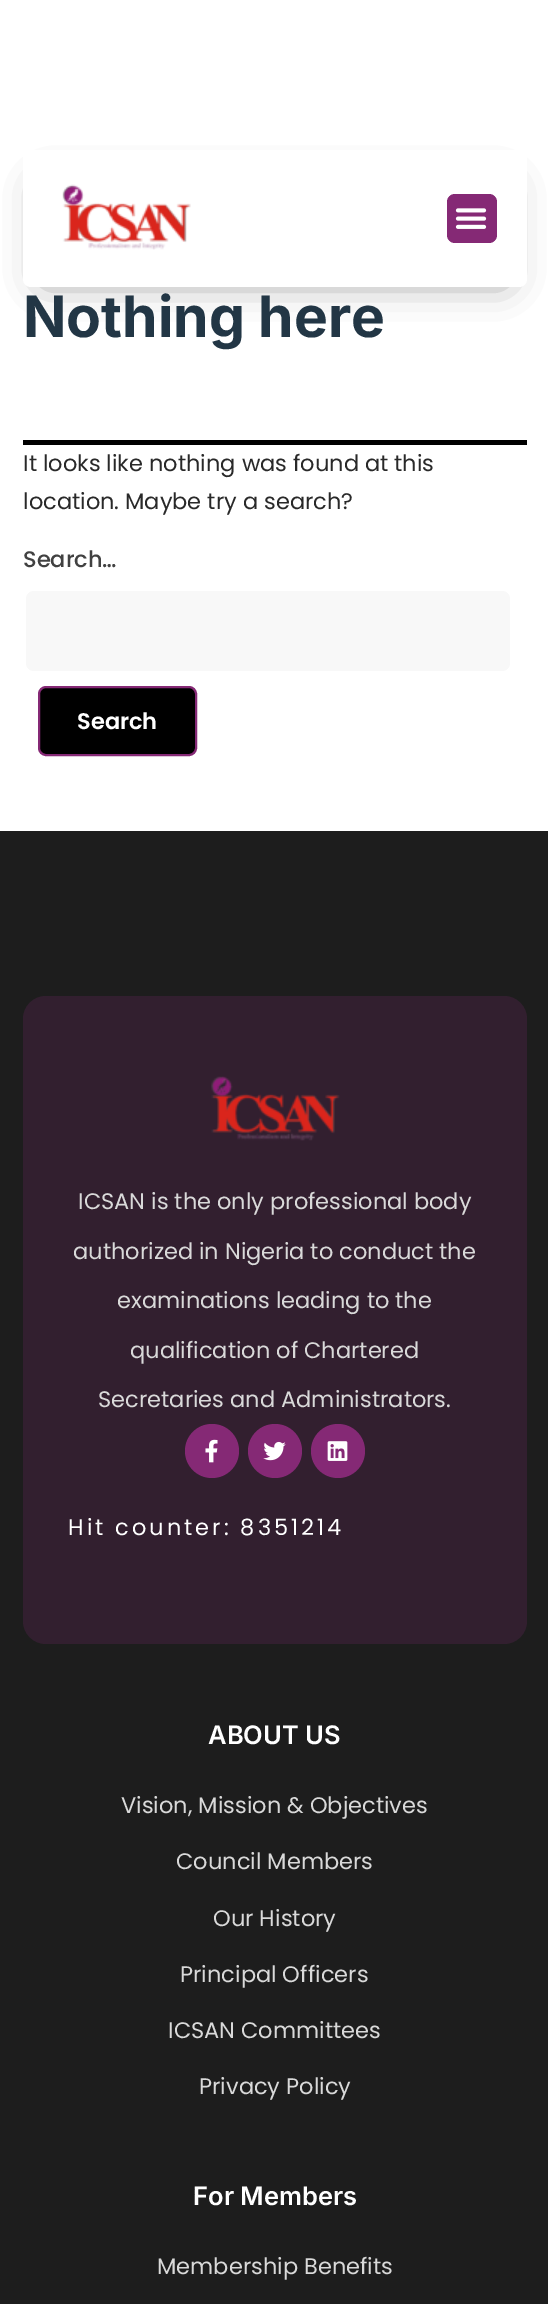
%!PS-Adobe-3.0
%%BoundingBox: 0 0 548 2304
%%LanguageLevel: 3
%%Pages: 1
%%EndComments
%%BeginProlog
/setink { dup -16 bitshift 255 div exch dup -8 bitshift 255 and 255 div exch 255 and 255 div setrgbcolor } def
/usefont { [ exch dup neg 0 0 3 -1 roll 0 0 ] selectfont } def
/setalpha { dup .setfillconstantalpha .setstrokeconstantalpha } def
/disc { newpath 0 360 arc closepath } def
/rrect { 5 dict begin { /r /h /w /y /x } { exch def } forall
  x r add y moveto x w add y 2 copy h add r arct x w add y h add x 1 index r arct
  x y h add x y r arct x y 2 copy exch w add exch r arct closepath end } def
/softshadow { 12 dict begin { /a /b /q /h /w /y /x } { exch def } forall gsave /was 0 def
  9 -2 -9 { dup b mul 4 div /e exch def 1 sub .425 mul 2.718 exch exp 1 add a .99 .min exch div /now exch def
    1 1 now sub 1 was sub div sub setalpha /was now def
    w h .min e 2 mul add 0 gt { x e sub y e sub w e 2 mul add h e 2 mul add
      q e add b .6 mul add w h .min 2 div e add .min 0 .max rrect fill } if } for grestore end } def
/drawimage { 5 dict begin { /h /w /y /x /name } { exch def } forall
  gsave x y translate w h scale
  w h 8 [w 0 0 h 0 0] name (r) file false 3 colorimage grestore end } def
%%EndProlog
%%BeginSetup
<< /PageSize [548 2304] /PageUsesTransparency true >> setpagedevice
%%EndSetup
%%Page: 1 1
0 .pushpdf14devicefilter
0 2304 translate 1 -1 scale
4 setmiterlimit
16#FFFFFF setink
0 0 548 2304 rectfill
16#000000 setink
45 188 459 91 0 19 0.5 softshadow
16#FFFFFF setink
23 150 504 137 8 rrect fill
(img1.raw) 62 184 129 66 drawimage
16#852975 setink
447 194 50 49 8 rrect fill
(img2.raw) 455 208 32 21 drawimage
16#000000 setink
23 440 504 5 rectfill
/Inter-Bold 57 usefont
16#223645 setink
23 337 moveto (Nothing here) show
/Poppins-Regular 22.5 usefont
16#292929 setink
23 471 moveto (It looks like nothing was found at this) show
23 509 moveto (location. Maybe try a search?) show
/Poppins-Medium 22.5 usefont
16#414141 setink
23 567 moveto (Search…) show
16#F8F8F8 setink
26 591 484 80 8 rrect fill
16#000000 setink
39 687 157 68 7 rrect gsave fill grestore
16#852975 setink
2 setlinewidth
stroke
/Poppins-SemiBold 22.5 usefont
16#FFFFFF setink
77 729 moveto (Search) show
16#1D1D1D setink
0 831 548 1473 rectfill
16#321F2F setink
23 996 504 648 23 rrect fill
(img3.raw) 211 1076 129 65 drawimage
/Poppins-Regular 22.5 usefont
16#D9D9D9 setink
[
    [(ICSAN is the only professional body) 78 1209]
    [(authorized in Nigeria to conduct the) 73 1259]
    [(examinations leading to the) 117 1308]
    [(qualification of Chartered) 130 1358]
    [(Secretaries and Administrators.) 98 1407]
] { aload pop moveto show } forall
16#852975 setink
212 1451 27 disc fill
(img4.raw) 205 1439 13 24 drawimage
275 1451 27 disc fill
(img5.raw) 263 1441 23 20 drawimage
338 1451 27 disc fill
(img6.raw) 327 1441 21 20 drawimage
16#FFFFFF setink
68 1535 moveto 3 0 (Hit counter: 8351214) ashow
/Inter-SemiBold 25.5 usefont
208 1744 moveto (ABOUT US) show
/Poppins-Regular 22.5 usefont
16#D9D9D9 setink
[
    [(Vision, Mission & Objectives) 121 1813]
    [(Council Members) 176 1869]
    [(Our History) 213 1926]
    [(Principal Officers) 180 1982]
    [(ICSAN Committees) 168 2038]
    [(Privacy Policy) 199 2094]
] { aload pop moveto show } forall
/Inter-SemiBold 25.5 usefont
16#FFFFFF setink
193 2205 moveto (For Members) show
/Poppins-Regular 22.5 usefont
16#D9D9D9 setink
157 2274 moveto (Membership Benefits) show
.poppdf14devicefilter showpage
%%EOF
